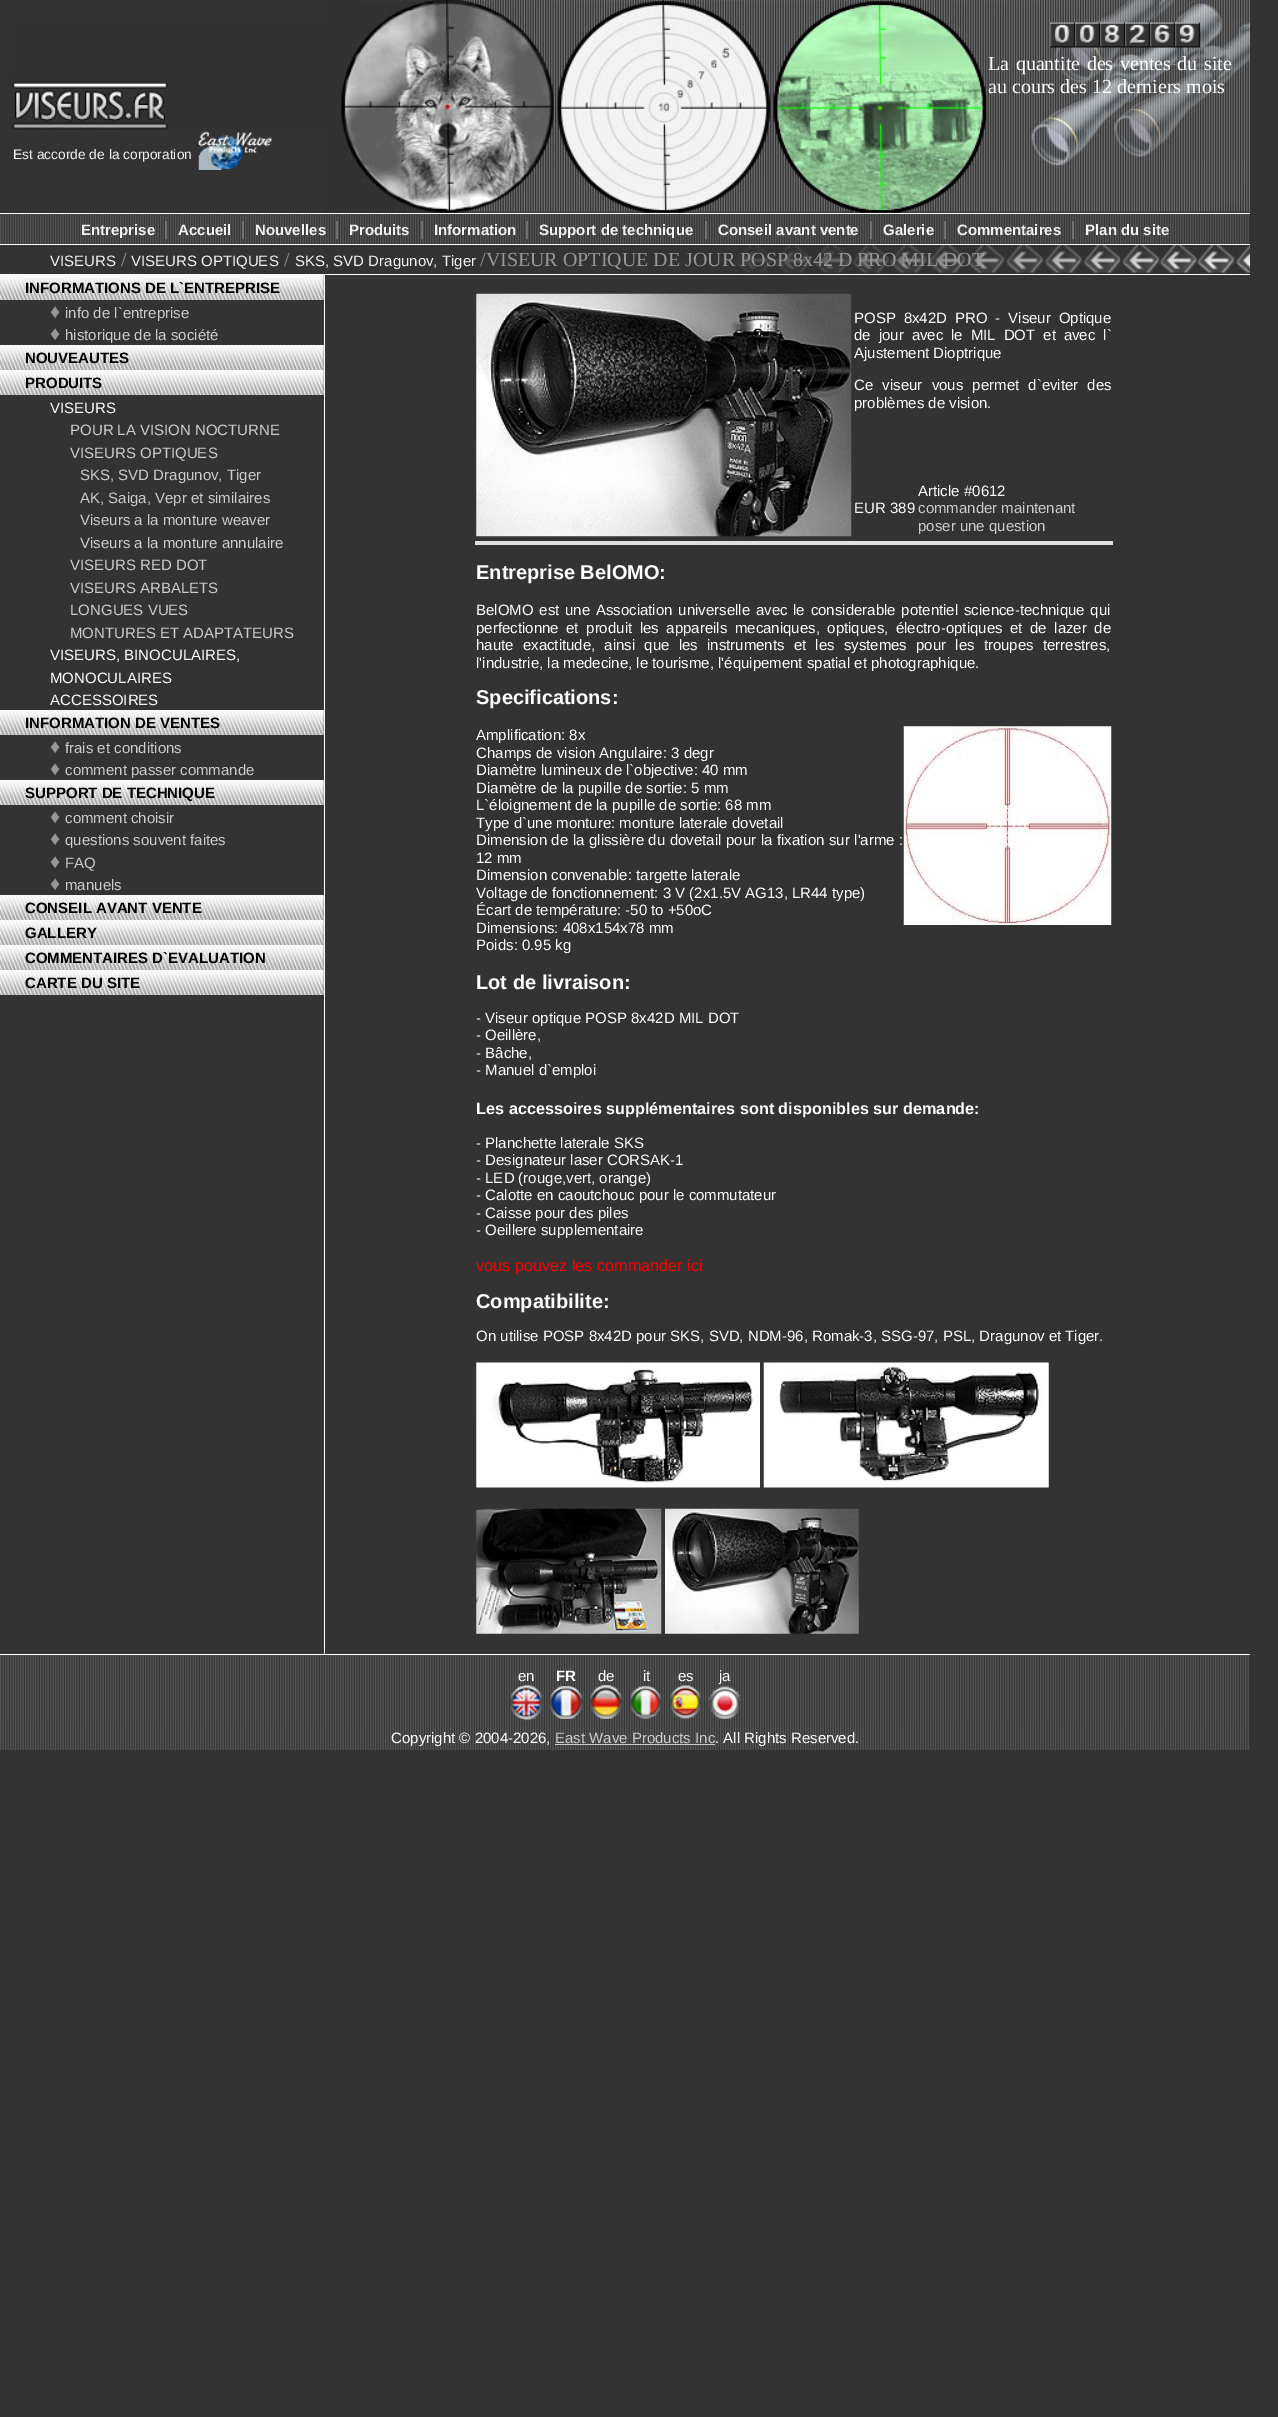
%!PS-Adobe-3.0
%%BoundingBox: 0 0 1278 2417
%%LanguageLevel: 3
%%Pages: 1
%%EndComments
%%BeginProlog
/setink { dup -16 bitshift 255 div exch dup -8 bitshift 255 and 255 div exch 255 and 255 div setrgbcolor } def
/usefont { [ exch dup neg 0 0 3 -1 roll 0 0 ] selectfont } def
/drawimage { 5 dict begin { /h /w /y /x /name } { exch def } forall
  gsave x y translate w h scale
  w h 8 [w 0 0 h 0 0] name (r) file false 3 colorimage grestore end } def
%%EndProlog
%%BeginSetup
<< /PageSize [1278 2417] >> setpagedevice
%%EndSetup
%%Page: 1 1
0 2417 translate 1 -1 scale
4 setmiterlimit
16#333333 setink
0 0 1278 2417 rectfill
(img1.raw) 325 0 525 213 drawimage
(img2.raw) 850 0 400 213 drawimage
(img3.raw) 1050 22 25 26 drawimage
(img4.raw) 1075 22 25 26 drawimage
(img5.raw) 1100 22 25 26 drawimage
(img6.raw) 1125 22 25 26 drawimage
(img7.raw) 1150 22 25 26 drawimage
(img8.raw) 1175 22 25 26 drawimage
/LiberationSerif-Regular 20 usefont
16#FFFFFF setink
988 70 moveto 1.5 0 32 (La quantite des ventes du site) widthshow
988 93 moveto (au cours des 12 derniers mois) show
(img9.raw) 10 24 315 106 drawimage
/LiberationSans-Regular 13.75 usefont
16#F3F3F3 setink
13 159 moveto (Est accorde de la corporation) show
(img10.raw) 197 131 76 39 drawimage
(img11.raw) 0 214 1249 30 drawimage
16#FFFFFF setink
0 213 1250 1 rectfill
/LiberationSans-Bold 15 usefont
16#F3F3F3 setink
81 235 moveto (Entreprise) show
/LiberationSerif-Regular 20 usefont
16#979797 setink
164 235 moveto (|) show
/LiberationSans-Bold 15 usefont
16#F3F3F3 setink
178 235 moveto (Accueil) show
/LiberationSerif-Regular 20 usefont
16#979797 setink
241 235 moveto (|) show
/LiberationSans-Bold 15 usefont
16#F3F3F3 setink
255 235 moveto (Nouvelles) show
/LiberationSerif-Regular 20 usefont
16#979797 setink
335 235 moveto (|) show
/LiberationSans-Bold 15 usefont
16#F3F3F3 setink
349 235 moveto (Produits) show
/LiberationSerif-Regular 20 usefont
16#979797 setink
420 235 moveto (|) show
/LiberationSans-Bold 15 usefont
16#F3F3F3 setink
434 235 moveto (Information) show
/LiberationSerif-Regular 20 usefont
16#979797 setink
525 235 moveto (|) show
/LiberationSans-Bold 15 usefont
16#F3F3F3 setink
539 235 moveto (Support de technique) show
/LiberationSerif-Regular 20 usefont
16#979797 setink
704 235 moveto (|) show
/LiberationSans-Bold 15 usefont
16#F3F3F3 setink
718 235 moveto (Conseil avant vente) show
/LiberationSerif-Regular 20 usefont
16#979797 setink
869 235 moveto (|) show
/LiberationSans-Bold 15 usefont
16#F3F3F3 setink
883 235 moveto (Galerie) show
/LiberationSerif-Regular 20 usefont
16#979797 setink
943 235 moveto (|) show
/LiberationSans-Bold 15 usefont
16#F3F3F3 setink
957 235 moveto (Commentaires) show
/LiberationSerif-Regular 20 usefont
16#979797 setink
1071 235 moveto (|) show
/LiberationSans-Bold 15 usefont
16#F3F3F3 setink
1085 235 moveto (Plan du site) show
(img12.raw) 737 245 513 28 drawimage
16#FFFFFF setink
0 244 1250 1 rectfill
0 274 1250 1 rectfill
/LiberationSans-Regular 15 usefont
16#F3F3F3 setink
50 266 moveto (VISEURS) show
/LiberationSerif-Regular 20 usefont
16#979797 setink
121 266 moveto (/) show
/LiberationSans-Regular 15 usefont
16#F3F3F3 setink
131 266 moveto (VISEURS OPTIQUES) show
/LiberationSerif-Regular 20 usefont
16#979797 setink
284 266 moveto (/) show
/LiberationSans-Regular 15 usefont
16#F3F3F3 setink
295 266 moveto (SKS, SVD Dragunov, Tiger) show
/LiberationSerif-Regular 20 usefont
16#979797 setink
480 266 moveto (/VISEUR OPTIQUE DE JOUR POSP 8x42 D PRO MIL DOT) show
16#FFFFFF setink
324 275 1 1379 rectfill
(img13.raw) 0 275 324 25 drawimage
/LiberationSans-Bold 15 usefont
16#000000 setink
25 293 moveto (INFORMATIONS DE L`ENTREPRISE) show
/LiberationSerif-Regular 20 usefont
16#979797 setink
50 318 moveto (♦) show
/LiberationSans-Regular 15 usefont
16#CCCCCC setink
65 318 moveto (info de l`entreprise) show
/LiberationSerif-Regular 20 usefont
16#979797 setink
50 340 moveto (♦) show
/LiberationSans-Regular 15 usefont
16#CCCCCC setink
65 340 moveto (historique de la société) show
(img14.raw) 0 345 324 25 drawimage
/LiberationSans-Bold 15 usefont
16#000000 setink
25 363 moveto (NOUVEAUTES) show
(img14.raw) 0 370 324 25 drawimage
25 388 moveto (PRODUITS) show
/LiberationSans-Regular 15 usefont
16#FFFFFF setink
50 413 moveto (VISEURS) show
16#CCCCCC setink
[
    [(POUR LA VISION NOCTURNE) 70 435]
    [(VISEURS OPTIQUES) 70 458]
    [(SKS, SVD Dragunov, Tiger) 80 480]
    [(AK, Saiga, Vepr et similaires) 80 503]
    [(Viseurs a la monture weaver) 80 525]
    [(Viseurs a la monture annulaire) 80 548]
    [(VISEURS RED DOT) 70 570]
    [(VISEURS ARBALETS) 70 593]
    [(LONGUES VUES) 70 615]
    [(MONTURES ET ADAPTATEURS) 70 638]
] { aload pop moveto show } forall
16#FFFFFF setink
[
    [(VISEURS, BINOCULAIRES,) 50 660]
    [(MONOCULAIRES) 50 683]
    [(ACCESSOIRES) 50 705]
] { aload pop moveto show } forall
(img15.raw) 0 710 324 25 drawimage
/LiberationSans-Bold 15 usefont
16#000000 setink
25 728 moveto (INFORMATION DE VENTES) show
/LiberationSerif-Regular 20 usefont
16#979797 setink
50 753 moveto (♦) show
/LiberationSans-Regular 15 usefont
16#CCCCCC setink
65 753 moveto (frais et conditions) show
/LiberationSerif-Regular 20 usefont
16#979797 setink
50 775 moveto (♦) show
/LiberationSans-Regular 15 usefont
16#CCCCCC setink
65 775 moveto (comment passer commande) show
(img16.raw) 0 780 324 25 drawimage
/LiberationSans-Bold 15 usefont
16#000000 setink
25 798 moveto (SUPPORT DE TECHNIQUE) show
/LiberationSerif-Regular 20 usefont
16#979797 setink
50 823 moveto (♦) show
/LiberationSans-Regular 15 usefont
16#CCCCCC setink
65 823 moveto (comment choisir) show
/LiberationSerif-Regular 20 usefont
16#979797 setink
50 845 moveto (♦) show
/LiberationSans-Regular 15 usefont
16#CCCCCC setink
65 845 moveto (questions souvent faites) show
/LiberationSerif-Regular 20 usefont
16#979797 setink
50 868 moveto (♦) show
/LiberationSans-Regular 15 usefont
16#CCCCCC setink
65 868 moveto (FAQ) show
/LiberationSerif-Regular 20 usefont
16#979797 setink
50 890 moveto (♦) show
/LiberationSans-Regular 15 usefont
16#CCCCCC setink
65 890 moveto (manuels) show
(img17.raw) 0 895 324 25 drawimage
/LiberationSans-Bold 15 usefont
16#000000 setink
25 913 moveto (CONSEIL AVANT VENTE) show
(img18.raw) 0 920 324 25 drawimage
25 938 moveto (GALLERY) show
(img19.raw) 0 945 324 25 drawimage
25 963 moveto (COMMENTAIRES D`EVALUATION) show
(img20.raw) 0 970 324 25 drawimage
25 988 moveto (CARTE DU SITE) show
(img21.raw) 476 293 376 244 drawimage
/LiberationSans-Regular 15 usefont
16#FFFFFF setink
854 323 moveto 3.75 0 32 (POSP 8x42D PRO - Viseur Optique) widthshow
854 340 moveto 3.75 0 32 (de jour avec le MIL DOT et avec l`) widthshow
854 358 moveto (Ajustement Dioptrique) show
854 390 moveto 5 0 32 (Ce viseur vous permet d`eviter des) widthshow
[
    [(problèmes de vision.) 854 408]
    [(EUR 389) 854 513]
    [(Article #0612) 918 496]
] { aload pop moveto show } forall
16#CCCCCC setink
918 513 moveto (commander maintenant) show
918 531 moveto (poser une question) show
16#E0E0E0 setink
475 541 638 4 rectfill
/LiberationSans-Bold 20 usefont
16#FFFFFF setink
476 579 moveto (Entreprise BelOMO:) show
/LiberationSans-Regular 15 usefont
476 615 moveto 1.6 0 32 (BelOMO est une Association universelle avec le considerable potentiel science-technique qui) widthshow
476 633 moveto 3.4 0 32 (perfectionne et produit les appareils mecaniques, optiques, électro-optiques et de lazer de) widthshow
476 650 moveto 5 0 32 (haute exactitude, ainsi que les instruments et les systemes pour les troupes terrestres,) widthshow
476 668 moveto (l'industrie, la medecine, le tourisme, l'équipement spatial et photographique.) show
/LiberationSans-Bold 20 usefont
476 704 moveto (Specifications:) show
/LiberationSans-Regular 15 usefont
476 740 moveto (Amplification: 8x) show
(img22.raw) 903 726 209 199 drawimage
[
    [(Champs de vision Angulaire: 3 degr) 476 758]
    [(Diamètre lumineux de l`objective: 40 mm) 476 775]
    [(Diamètre de la pupille de sortie: 5 mm) 476 793]
    [(L`éloignement de la pupille de sortie: 68 mm) 476 810]
    [(Type d`une monture: monture laterale dovetail) 476 828]
] { aload pop moveto show } forall
476 845 moveto 0.4 0 32 (Dimension de la glissière du dovetail pour la fixation sur l'arme :) widthshow
[
    [(12 mm) 476 863]
    [(Dimension convenable: targette laterale) 476 880]
    [(Voltage de fonctionnement: 3 V \(2x1.5V AG13, LR44 type\)) 476 898]
    [(Écart de température: -50 to +50oC) 476 915]
    [(Dimensions: 408x154x78 mm) 476 933]
    [(Poids: 0.95 kg) 476 950]
] { aload pop moveto show } forall
/LiberationSans-Bold 20 usefont
476 989 moveto (Lot de livraison:) show
/LiberationSans-Regular 15 usefont
[
    [(- Viseur optique POSP 8x42D MIL DOT) 476 1023]
    [(- Oeillère,) 476 1040]
    [(- Bâche,) 476 1058]
    [(- Manuel d`emploi) 476 1075]
] { aload pop moveto show } forall
/LiberationSans-Bold 16.25 usefont
476 1114 moveto (Les accessoires supplémentaires sont disponibles sur demande:) show
/LiberationSans-Regular 15 usefont
[
    [(- Planchette laterale SKS) 476 1148]
    [(- Designateur laser CORSAK-1) 476 1165]
    [(- LED \(rouge,vert, orange\)) 476 1183]
    [(- Calotte en caoutchouc pour le commutateur) 476 1200]
    [(- Caisse pour des piles) 476 1218]
    [(- Oeillere supplementaire) 476 1235]
] { aload pop moveto show } forall
/LiberationSans-Regular 16.25 usefont
16#FF0000 setink
476 1271 moveto (vous pouvez les commander ici) show
/LiberationSans-Bold 20 usefont
16#FFFFFF setink
476 1308 moveto (Compatibilite:) show
/LiberationSans-Regular 15 usefont
476 1341 moveto (On utilise POSP 8x42D pour SKS, SVD, NDM-96, Romak-3, SSG-97, PSL, Dragunov et Tiger.) show
(img23.raw) 476 1362 284 126 drawimage
(img24.raw) 763 1362 286 126 drawimage
(img25.raw) 476 1508 186 126 drawimage
(img26.raw) 665 1508 194 126 drawimage
(img27.raw) 0 1653 1249 72 drawimage
0 1654 1250 1 rectfill
518 1681 moveto (en) show
/LiberationSans-Bold 15 usefont
556 1681 moveto (FR) show
/LiberationSans-Regular 15 usefont
[
    [(de) 598 1681]
    [(it) 643 1681]
    [(es) 678 1681]
    [(ja) 719 1681]
] { aload pop moveto show } forall
(img28.raw) 510 1685 33 36 drawimage
(img29.raw) 548 1686 36 33 drawimage
(img30.raw) 590 1685 33 34 drawimage
(img31.raw) 630 1686 32 33 drawimage
(img32.raw) 670 1685 33 34 drawimage
(img33.raw) 708 1686 34 33 drawimage
(img34.raw) 0 1725 1249 25 drawimage
391 1743 moveto (Copyright © 2004-2026,) show
16#CCCCCC setink
555 1743 moveto (East Wave Products Inc) show
555 1744 160 1 rectfill
16#FFFFFF setink
715 1743 moveto (. All Rights Reserved.) show
showpage
%%EOF
